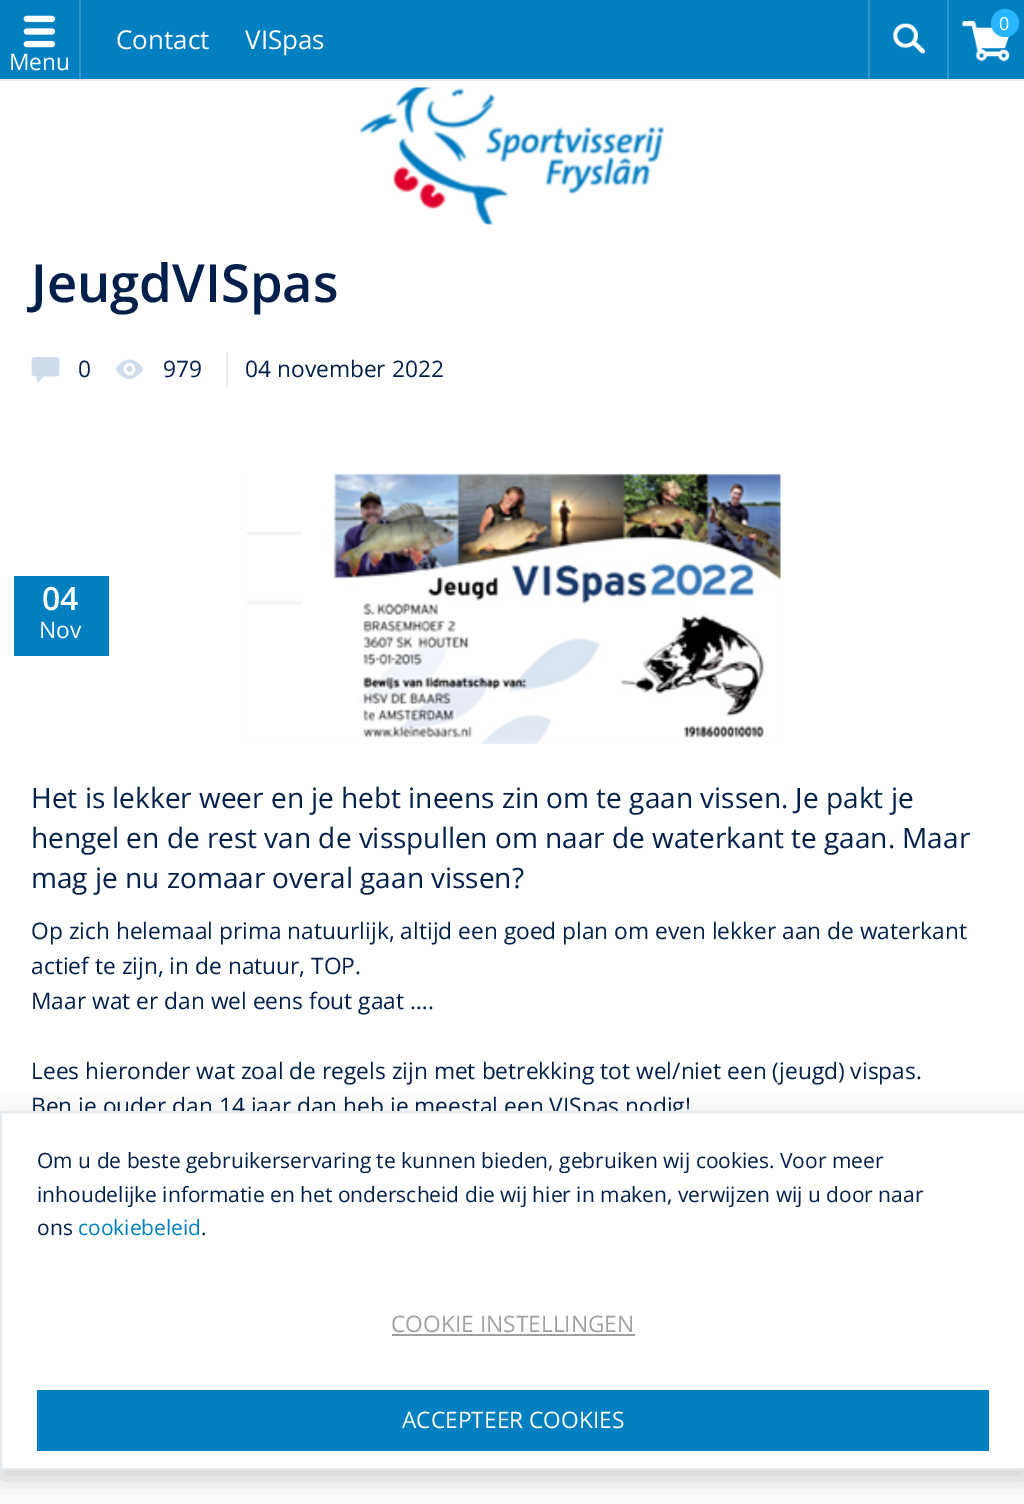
%!PS-Adobe-3.0
%%BoundingBox: 0 0 1024 1504
%%LanguageLevel: 3
%%Pages: 1
%%EndComments
%%BeginProlog
/setink { dup -16 bitshift 255 div exch dup -8 bitshift 255 and 255 div exch 255 and 255 div setrgbcolor } def
/usefont { [ exch dup neg 0 0 3 -1 roll 0 0 ] selectfont } def
/setalpha { dup .setfillconstantalpha .setstrokeconstantalpha } def
/disc { newpath 0 360 arc closepath } def
/rrect { 5 dict begin { /r /h /w /y /x } { exch def } forall
  x r add y moveto x w add y 2 copy h add r arct x w add y h add x 1 index r arct
  x y h add x y r arct x y 2 copy exch w add exch r arct closepath end } def
/softshadow { 12 dict begin { /a /b /q /h /w /y /x } { exch def } forall gsave /was 0 def
  9 -2 -9 { dup b mul 4 div /e exch def 1 sub .425 mul 2.718 exch exp 1 add a .99 .min exch div /now exch def
    1 1 now sub 1 was sub div sub setalpha /was now def
    w h .min e 2 mul add 0 gt { x e sub y e sub w e 2 mul add h e 2 mul add
      q e add b .6 mul add w h .min 2 div e add .min 0 .max rrect fill } if } for grestore end } def
/drawimage { 5 dict begin { /h /w /y /x /name } { exch def } forall
  gsave x y translate w h scale
  w h 8 [w 0 0 h 0 0] name (r) file false 3 colorimage grestore end } def
%%EndProlog
%%BeginSetup
<< /PageSize [1024 1504] /PageUsesTransparency true >> setpagedevice
%%EndSetup
%%Page: 1 1
0 .pushpdf14devicefilter
0 1504 translate 1 -1 scale
4 setmiterlimit
16#FFFFFF setink
0 0 1024 1504 rectfill
16#007FC1 setink
0 0 1024 79 rectfill
16#E6EBF0 setink
0 79 1024 2 rectfill
(img1.raw) 893 23 32 31 drawimage
16#3399CD setink
868 0 2 79 rectfill
(img2.raw) 962 21 48 41 drawimage
947 0 2 79 rectfill
16#28B5FF setink
1005 23 14 disc fill
/OpenSans-Regular 18 usefont
16#FFFFFF setink
999 30 moveto (0) show
/OpenSans-Regular 26 usefont
116 49 moveto (Contact) show
245 49 moveto (VISpas) show
16#3399CD setink
79 0 2 79 rectfill
(img3.raw) 23 15 33 33 drawimage
/OpenSans-Regular 22.75 usefont
16#FFFFFF setink
9 70 moveto (Menu) show
(img4.raw) 360 87 305 138 drawimage
/OpenSans-SemiBold 52.5 usefont
16#001F4B setink
31 302 moveto (JeugdVISpas) show
(img5.raw) 31 357 29 27 drawimage
/OpenSans-Regular 22.75 usefont
78 377 moveto (0) show
(img6.raw) 115 359 29 20 drawimage
163 377 moveto (979) show
16#E6EBF0 setink
226 352 2 35 rectfill
16#001F4B setink
245 377 moveto (04 november 2022) show
16#007FC1 setink
14 576 95 80 rectfill
/OpenSans-SemiBold 32 usefont
16#FFFFFF setink
42 610 moveto (04) show
/OpenSans-Regular 22.75 usefont
39 638 moveto (Nov) show
(img7.raw) 245 473 536 271 drawimage
/OpenSans-Regular 28 usefont
16#001F4B setink
[
    [(Het is lekker weer en je hebt ineens zin om te gaan vissen. Je pakt je) 31 808]
    [(hengel en de rest van de visspullen om naar de waterkant te gaan. Maar) 31 848]
    [(mag je nu zomaar overal gaan vissen?) 31 888]
] { aload pop moveto show } forall
/OpenSans-Regular 22.75 usefont
[
    [(Op zich helemaal prima natuurlijk, altijd een goed plan om even lekker aan de waterkant) 31 939]
    [(actief te zijn, in de natuur, TOP.) 31 974]
    [(Maar wat er dan wel eens fout gaat ….) 31 1009]
    [(Lees hieronder wat zoal de regels zijn met betrekking tot wel/niet een \(jeugd\) vispas.) 31 1079]
    [(Ben je ouder dan 14 jaar dan heb je meestal een VISpas nodig!) 31 1114]
] { aload pop moveto show } forall
16#000000 setink
0 1120 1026 359 0 13 0.1 softshadow
0 1120 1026 359 0 13 0.1 softshadow
16#FFFFFF setink
1 1112 moveto 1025 1112 lineto 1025 1469 lineto 1 1469 lineto closepath gsave fill grestore
16#E6EBF0 setink
2 setlinewidth
stroke
/OpenSans-Regular 21 usefont
16#001F4B setink
[
    [(Om u de beste gebruikerservaring te kunnen bieden, gebruiken wij cookies. Voor meer) 37 1168]
    [(inhoudelijke informatie en het onderscheid die wij hier in maken, verwijzen wij u door naar) 37 1202]
    [(ons) 37 1235]
] { aload pop moveto show } forall
16#007FC1 setink
78 1235 moveto (cookiebeleid) show
16#001F4B setink
201 1235 moveto (.) show
/OpenSans-Regular 22.75 usefont
16#A0A0A0 setink
391 1332 moveto (COOKIE INSTELLINGEN) show
392 1334 243 2 rectfill
16#007FC1 setink
37 1390 952 61 rectfill
16#FFFFFF setink
402 1428 moveto (ACCEPTEER COOKIES) show
.poppdf14devicefilter showpage
%%EOF
